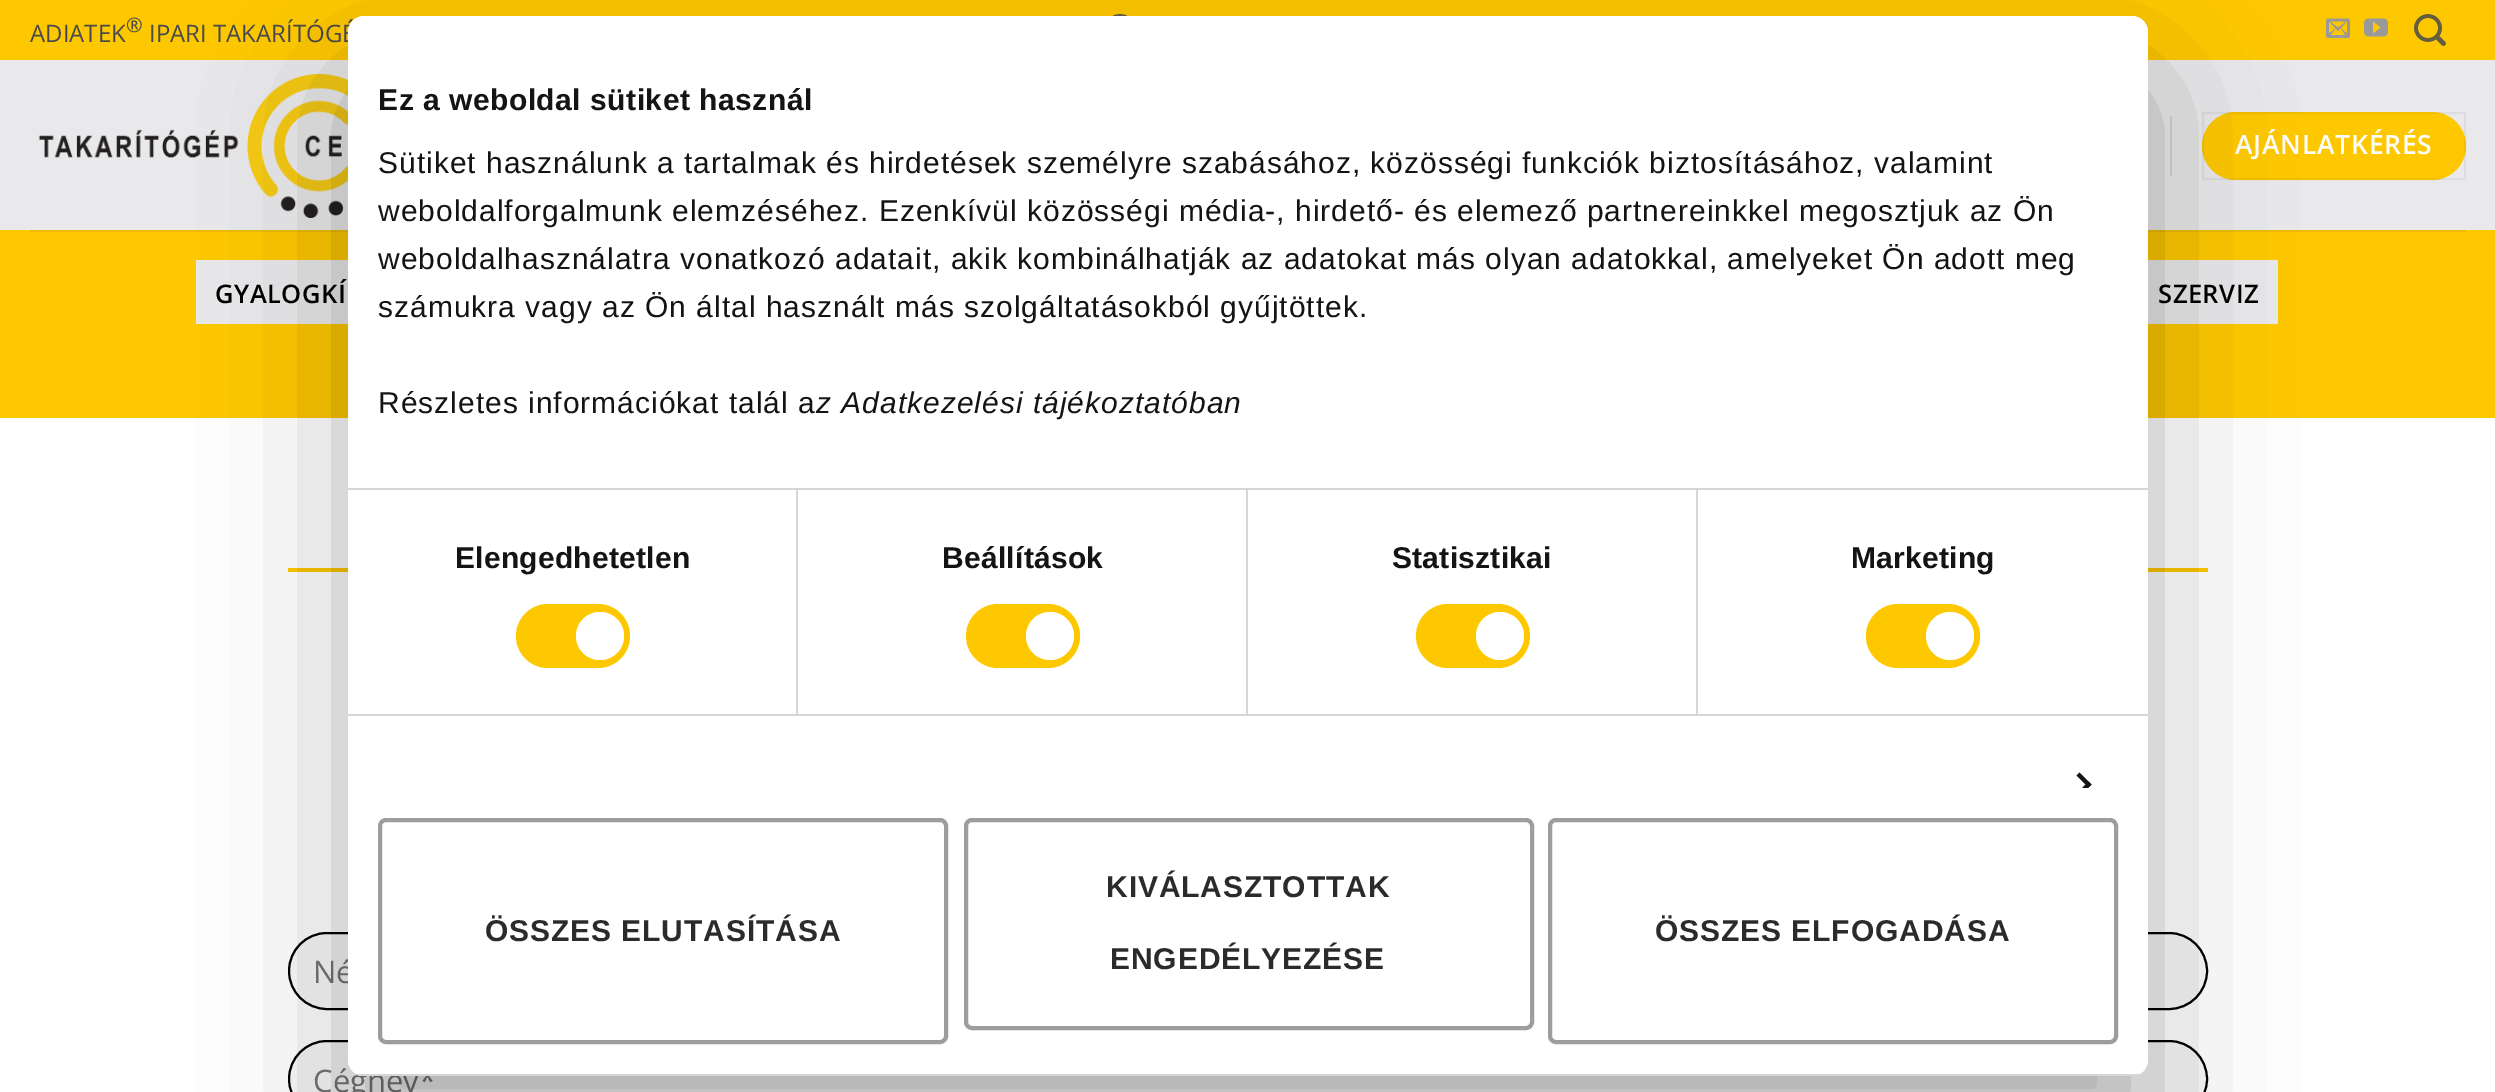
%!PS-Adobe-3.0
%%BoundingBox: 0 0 2495 1092
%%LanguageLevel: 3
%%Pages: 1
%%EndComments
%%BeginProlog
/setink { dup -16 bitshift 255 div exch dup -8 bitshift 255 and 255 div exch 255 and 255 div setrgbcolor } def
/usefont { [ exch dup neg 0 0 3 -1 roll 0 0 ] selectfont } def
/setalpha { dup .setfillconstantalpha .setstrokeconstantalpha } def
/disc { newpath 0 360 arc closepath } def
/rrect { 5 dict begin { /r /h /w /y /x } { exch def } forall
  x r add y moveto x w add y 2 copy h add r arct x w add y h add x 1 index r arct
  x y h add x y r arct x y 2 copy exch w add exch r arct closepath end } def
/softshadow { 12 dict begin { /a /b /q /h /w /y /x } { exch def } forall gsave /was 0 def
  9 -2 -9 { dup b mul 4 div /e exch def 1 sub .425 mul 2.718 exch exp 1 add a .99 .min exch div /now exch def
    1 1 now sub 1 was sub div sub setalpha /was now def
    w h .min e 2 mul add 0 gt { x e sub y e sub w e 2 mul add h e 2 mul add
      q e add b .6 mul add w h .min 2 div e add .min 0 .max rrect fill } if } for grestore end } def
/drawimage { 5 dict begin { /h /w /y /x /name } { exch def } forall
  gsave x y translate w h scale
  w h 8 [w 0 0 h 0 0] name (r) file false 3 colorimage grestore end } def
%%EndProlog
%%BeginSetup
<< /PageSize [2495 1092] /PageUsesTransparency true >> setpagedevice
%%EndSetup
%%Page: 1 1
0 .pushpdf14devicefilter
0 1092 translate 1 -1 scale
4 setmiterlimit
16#FFFFFF setink
0 0 2495 1092 rectfill
16#FEC800 setink
0 0 2495 60 rectfill
/OpenSans-Regular 24 usefont
16#4A4A4A setink
30 42 moveto (ADIATEK) show
/OpenSans-Regular 20 usefont
126 32 moveto (®) show
/OpenSans-Regular 24 usefont
149 42 moveto (IPARI TAKARÍTÓGÉ) show
(img1.raw) 1112 14 16 2 drawimage
(img2.raw) 2326 18 24 20 drawimage
(img3.raw) 2364 18 24 19 drawimage
(img4.raw) 2414 14 32 32 drawimage
16#E9E9EB setink
0 60 2495 170 rectfill
(img5.raw) 38 74 310 144 drawimage
16#D2D2D4 setink
2170 116 2 60 rectfill
16#FEC800 setink
2202 112 264 68 34 rrect fill
0.05 setalpha
16#000000 setink
2 setlinewidth
2203 113 262 66 rectstroke
/OpenSans-SemiBold 26.5 usefont
1 setalpha
16#FFFFFF setink
2235 154 moveto 0.75 0 (AJÁNLATKÉRÉS) ashow
[
    [0 230 2495 188 16#FEC800]
    [30 230 2436 2 16#ECBB07]
    [196 260 152 64 16#E9E9EB]
] { aload pop setink rectfill } forall
/OpenSans-SemiBold 25.5 usefont
16#000000 setink
215 303 moveto 0.5 0 (GYALOGKÍ) ashow
16#E9E9EB setink
2148 260 130 64 rectfill
16#000000 setink
2158 303 moveto 0.5 0 (SZERVIZ) ashow
16#FEC800 setink
288 568 60 4 rectfill
2148 568 60 4 rectfill
16#F8F8F8 setink
289 933 1918 76 38 rrect gsave fill grestore
16#000000 setink
stroke
/OpenSans-Regular 31 usefont
16#757575 setink
313 983 moveto (Né) show
16#F8F8F8 setink
289 1041 1918 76 38 rrect gsave fill grestore
16#000000 setink
stroke
16#757575 setink
313 1092 moveto (Cégnév*) show
16#000000 setink
348 80 1800 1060 16 68 0.3 softshadow
16#FFFFFF setink
348 16 1800 1060 16 rrect fill
16#D6D6D6 setink
348 488 1800 2 rectfill
/LiberationSans-Bold 30 usefont
16#141414 setink
378 110 moveto 0.5 0 (Ez a weboldal sütiket használ) ashow
/LiberationSans-Regular 30 usefont
378 173 moveto 1 0 (Sütiket használunk a tartalmak és hirdetések személyre szabásához, közösségi funkciók biztosításához, valamint) ashow
378 221 moveto 1 0 (weboldalforgalmunk elemzéséhez. Ezenkívül közösségi média-, hirdető- és elemező partnereinkkel megosztjuk az Ön) ashow
378 269 moveto 1 0 (weboldalhasználatra vonatkozó adatait, akik kombinálhatják az adatokat más olyan adatokkal, amelyeket Ön adott meg) ashow
378 317 moveto 1 0 (számukra vagy az Ön által használt más szolgáltatásokból gyűjtöttek.) ashow
378 413 moveto 1 0 (Részletes információkat talál a) ashow
/LiberationSans-Italic 30 usefont
816 413 moveto 1 0 (z Adatkezelési tájékoztatóban) ashow
16#D6D6D6 setink
348 714 1800 2 rectfill
796 490 2 224 rectfill
/LiberationSans-Bold 30 usefont
16#141414 setink
455 568 moveto 0.25 0 (Elengedhetetlen) ashow
16#FEC800 setink
516 604 114 64 32 rrect fill
16#FFFFFF setink
600 636 24 disc fill
16#D6D6D6 setink
1246 490 2 224 rectfill
16#141414 setink
942 568 moveto 0.25 0 (Beállítások) ashow
16#FEC800 setink
966 604 114 64 32 rrect fill
16#FFFFFF setink
1050 636 24 disc fill
16#D6D6D6 setink
1696 490 2 224 rectfill
16#141414 setink
1392 568 moveto 0.25 0 (Statisztikai) ashow
16#FEC800 setink
1416 604 114 64 32 rrect fill
16#FFFFFF setink
1500 636 24 disc fill
16#141414 setink
1851 568 moveto 0.25 0 (Marketing) ashow
16#FEC800 setink
1866 604 114 64 32 rrect fill
16#FFFFFF setink
1950 636 24 disc fill
16#141414 setink
2079.5 772.5 moveto 2091.5 784.5 lineto 2088.5 787.5 lineto 2076.5 775.5 lineto closepath fill
gsave
348 16 1800 772 rectclip
2088.5 781.5 moveto 2091.5 784.5 lineto 2079.5 796.5 lineto 2076.5 793.5 lineto closepath fill
grestore
gsave
348 16 1800 1060 16 rrect clip newpath
16#D6D6D6 setink
348 1074 1800 2 rectfill
grestore
16#9D9D9D setink
4 setlinewidth
380 820 566 222 6 rrect stroke
16#2B2B2B setink
485 941 moveto 0.9 0 (ÖSSZES ELUTASÍTÁSA) ashow
16#9D9D9D setink
966 820 566 208 6 rrect stroke
16#2B2B2B setink
1106 897 moveto 0.9 0 (KIVÁLASZTOTTAK) ashow
1110 969 moveto 0.9 0 (ENGEDÉLYEZÉSE) ashow
16#9D9D9D setink
1550 820 566 222 6 rrect stroke
16#2B2B2B setink
1655 941 moveto 0.9 0 (ÖSSZES ELFOGADÁSA) ashow
.poppdf14devicefilter showpage
%%EOF
